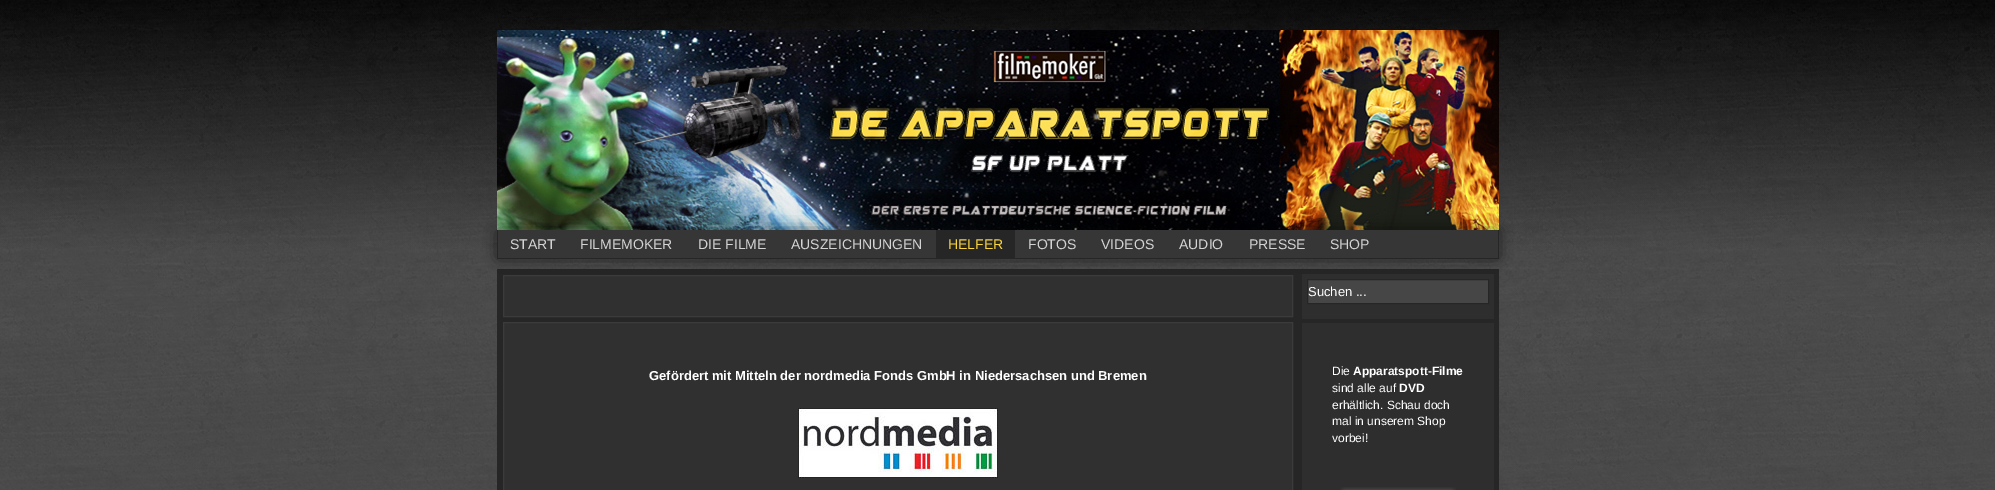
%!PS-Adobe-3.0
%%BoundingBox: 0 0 1995 490
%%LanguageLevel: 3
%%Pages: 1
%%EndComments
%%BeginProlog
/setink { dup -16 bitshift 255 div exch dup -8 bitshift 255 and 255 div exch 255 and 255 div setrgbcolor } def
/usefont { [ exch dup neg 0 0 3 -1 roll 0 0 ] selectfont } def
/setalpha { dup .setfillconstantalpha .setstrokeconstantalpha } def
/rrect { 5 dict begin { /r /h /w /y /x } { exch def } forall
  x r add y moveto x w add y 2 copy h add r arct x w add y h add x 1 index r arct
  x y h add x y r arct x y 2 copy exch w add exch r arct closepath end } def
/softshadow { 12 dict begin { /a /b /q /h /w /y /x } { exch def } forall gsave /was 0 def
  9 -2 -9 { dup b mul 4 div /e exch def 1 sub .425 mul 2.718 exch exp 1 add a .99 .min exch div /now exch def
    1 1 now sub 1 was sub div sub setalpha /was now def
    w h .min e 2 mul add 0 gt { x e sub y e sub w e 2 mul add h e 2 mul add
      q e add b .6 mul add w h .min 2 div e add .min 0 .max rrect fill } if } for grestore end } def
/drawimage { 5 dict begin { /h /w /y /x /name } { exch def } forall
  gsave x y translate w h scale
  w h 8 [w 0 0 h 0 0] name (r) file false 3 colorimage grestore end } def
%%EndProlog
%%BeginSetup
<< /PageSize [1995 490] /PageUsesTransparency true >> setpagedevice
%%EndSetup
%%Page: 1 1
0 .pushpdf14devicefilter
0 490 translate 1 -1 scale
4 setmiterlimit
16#FFFFFF setink
0 0 1995 490 rectfill
(img1.raw) 0 0 1995 490 drawimage
(img2.raw) 497 30 1002 200 drawimage
16#262626 setink
497 269 1002 221 rectfill
16#303030 setink
503.5 275.5 moveto 1292.5 275.5 lineto 1292.5 316.5 lineto 503.5 316.5 lineto closepath gsave fill grestore
16#3B3B3B setink
stroke
16#2E2E2E setink
1302 274 192 45 rectfill
16#464646 setink
1307.5 279.5 moveto 1488.5 279.5 lineto 1488.5 303.5 lineto 1307.5 303.5 lineto closepath gsave fill grestore
16#262626 setink
stroke
16#000000 setink
499 232 998 25 0 7.5 0.75 softshadow
[
    [498 230 1000 28 16#363636]
    [1498 230 1 29 16#262626]
    [497 258 1002 1 16#262626]
    [497 230 1 29 16#262626]
] { aload pop setink rectfill } forall
/LiberationSans-Regular 14 usefont
16#D4D4D4 setink
[
    [(START) 510 249]
    [(FILMEMOKER) 580 249]
    [(DIE FILME) 698 249]
    [(AUSZEICHNUNGEN) 791 249]
] { aload pop moveto show } forall
16#262626 setink
936 230 79 28 rectfill
16#FBD53C setink
948 249 moveto (HELFER) show
16#D4D4D4 setink
[
    [(FOTOS) 1028 249]
    [(VIDEOS) 1101 249]
    [(AUDIO) 1179 249]
    [(PRESSE) 1249 249]
    [(SHOP) 1330 249]
] { aload pop moveto show } forall
16#303030 setink
503.5 322.5 moveto 1292.5 322.5 lineto 1292.5 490.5 lineto 503.5 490.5 lineto closepath gsave fill grestore
16#3B3B3B setink
stroke
/LiberationSans-Bold 13 usefont
16#FFFFFF setink
649 380 moveto (Gefördert mit Mitteln der nordmedia Fonds GmbH in Niedersachsen und Bremen) show
(img3.raw) 798 408 200 70 drawimage
/LiberationSans-Regular 13 usefont
1308 296 moveto (Suchen ...) show
16#2E2E2E setink
1302 323 192 167 rectfill
/LiberationSans-Regular 12 usefont
16#FFFFFF setink
1332 375 moveto (Die) show
/LiberationSans-Bold 12 usefont
1353 375 moveto (Apparatspott-Filme) show
/LiberationSans-Regular 12 usefont
1332 392 moveto (sind alle auf) show
/LiberationSans-Bold 12 usefont
1399 392 moveto (DVD) show
/LiberationSans-Regular 12 usefont
[
    [(erhältlich. Schau doch) 1332 409]
    [(mal in unserem Shop) 1332 425]
    [(vorbei!) 1332 442]
] { aload pop moveto show } forall
(img4.raw) 1340 487 116 3 drawimage
.poppdf14devicefilter showpage
%%EOF
